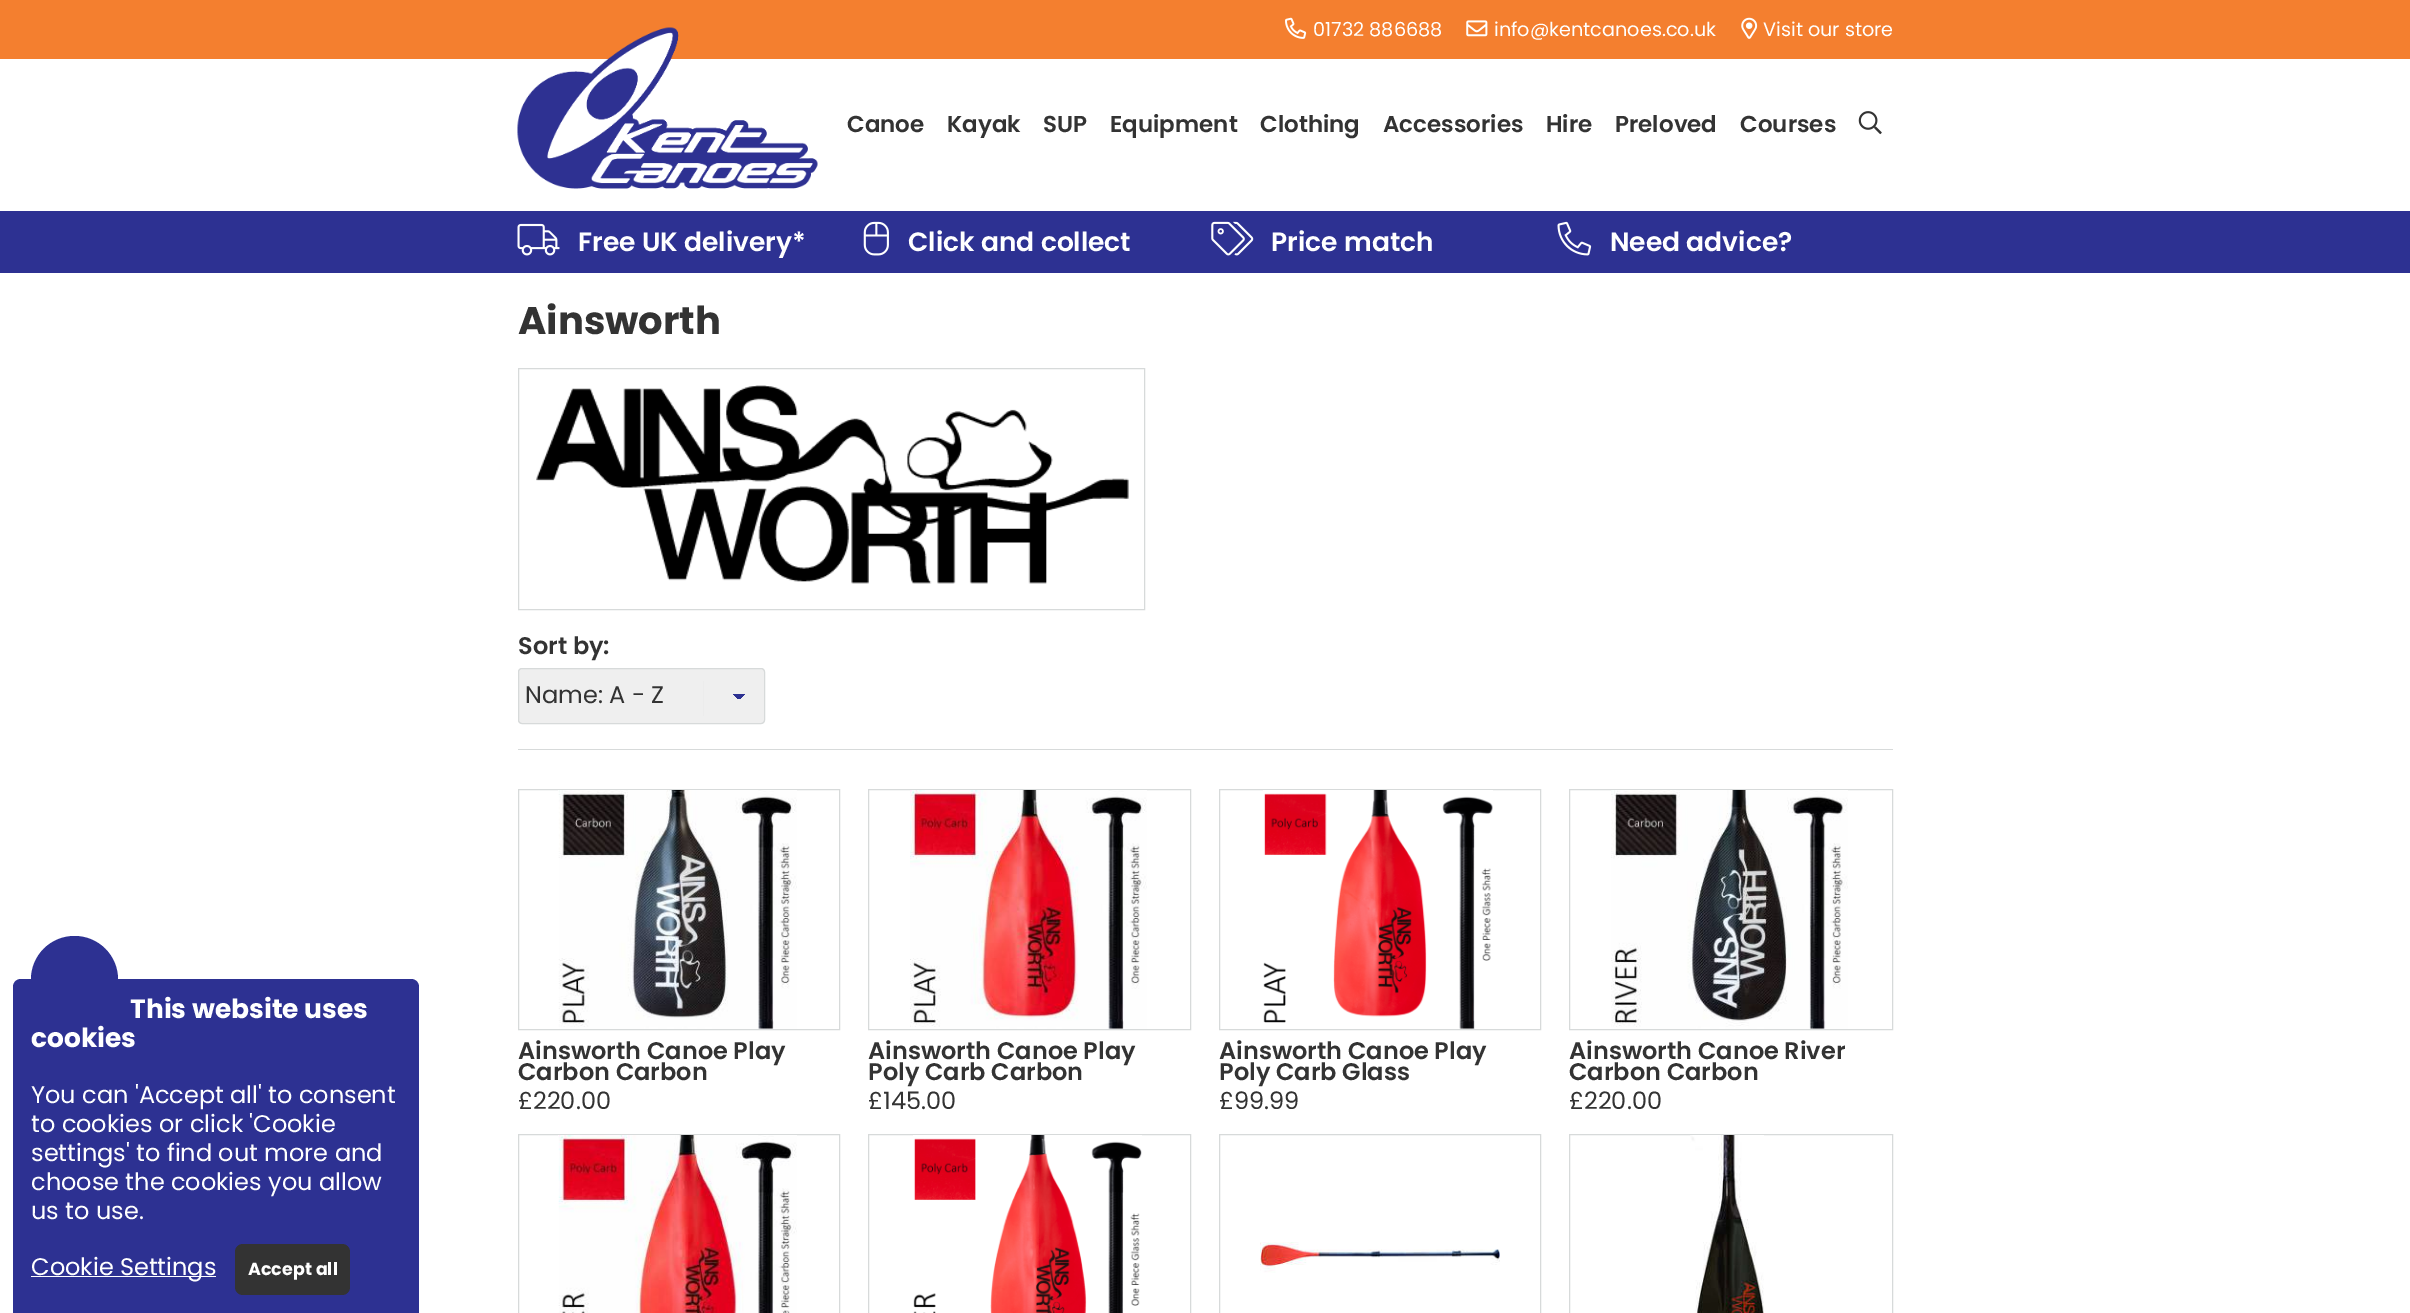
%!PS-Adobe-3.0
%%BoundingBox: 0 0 2410 1313
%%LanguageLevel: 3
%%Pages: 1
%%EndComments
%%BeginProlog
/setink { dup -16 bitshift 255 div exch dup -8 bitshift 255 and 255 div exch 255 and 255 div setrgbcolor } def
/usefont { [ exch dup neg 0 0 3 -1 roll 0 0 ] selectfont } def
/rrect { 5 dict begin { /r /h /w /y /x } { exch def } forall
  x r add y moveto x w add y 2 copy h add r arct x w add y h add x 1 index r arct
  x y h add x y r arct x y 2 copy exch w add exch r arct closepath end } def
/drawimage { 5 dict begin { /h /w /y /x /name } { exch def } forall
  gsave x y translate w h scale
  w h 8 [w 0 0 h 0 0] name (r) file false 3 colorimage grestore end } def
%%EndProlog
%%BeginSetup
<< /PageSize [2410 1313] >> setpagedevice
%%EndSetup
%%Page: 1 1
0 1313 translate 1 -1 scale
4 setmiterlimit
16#FFFFFF setink
0 0 2410 1313 rectfill
16#F47F2F setink
0 0 2410 59 rectfill
(img1.raw) 1285 17 22 22 drawimage
/Poppins-Regular 19.25 usefont
16#FFFFFF setink
1313 36 moveto (01732 886688) show
(img2.raw) 1466 20 22 17 drawimage
1494 36 moveto (info@kentcanoes.co.uk) show
(img3.raw) 1741 17 17 22 drawimage
1763 36 moveto (Visit our store) show
(img4.raw) 517 27 301 162 drawimage
/Poppins-SemiBold 23 usefont
16#333333 setink
[
    [(Canoe) 847 132]
    [(Kayak) 947 132]
    [(SUP) 1043 132]
    [(Equipment) 1110 132]
    [(Clothing) 1260 132]
    [(Accessories) 1383 132]
    [(Hire) 1546 132]
    [(Preloved) 1615 132]
    [(Courses) 1740 132]
] { aload pop moveto show } forall
(img5.raw) 1858 111 24 24 drawimage
16#2D3192 setink
0 211 2410 62 rectfill
(img6.raw) 517 223 43 33 drawimage
/Poppins-SemiBold 26.5 usefont
16#FFFFFF setink
578 251 moveto (Free UK delivery*) show
(img7.raw) 863 221 26 35 drawimage
908 251 moveto (Click and collect) show
(img8.raw) 1211 221 43 35 drawimage
1271 251 moveto (Price match) show
(img9.raw) 1557 221 35 35 drawimage
1610 251 moveto (Need advice?) show
/Poppins-Bold 38.5 usefont
16#333333 setink
518 334 moveto (Ainsworth) show
16#D7DADA setink
518.5 368.5 626 241 rectstroke
(img10.raw) 536 385 593 199 drawimage
518 749 1375 1 rectfill
/Poppins-SemiBold 24 usefont
16#333333 setink
518 654 moveto (Sort by:) show
16#EFEFEF setink
518 668 247 56 4 rrect fill
16#ECECEC setink
703 681 1 35 rectfill
gsave 739 694 moveto 745 694 lineto 745 699 lineto 739 699 lineto closepath clip newpath
<< /ShadingType 2 /ColorSpace /DeviceRGB /Coords [739 694 745 700] /Extend [true true] /Function << /FunctionType 3 /Domain [0 1] /Functions [<< /FunctionType 2 /Domain [0 1] /C0 [0.176 0.192 0.573] /C1 [0.176 0.192 0.573] /N 1 >> << /FunctionType 2 /Domain [0 1] /C0 [0.937 0.937 0.937] /C1 [0.937 0.937 0.937] /N 1 >>] /Bounds [0.5] /Encode [0 1 0 1] >> >> shfill grestore
gsave 733 694 moveto 739 694 lineto 739 699 lineto 733 699 lineto closepath clip newpath
<< /ShadingType 2 /ColorSpace /DeviceRGB /Coords [733 700 739 694] /Extend [true true] /Function << /FunctionType 3 /Domain [0 1] /Functions [<< /FunctionType 2 /Domain [0 1] /C0 [0.937 0.937 0.937] /C1 [0.937 0.937 0.937] /N 1 >> << /FunctionType 2 /Domain [0 1] /C0 [0.176 0.192 0.573] /C1 [0.176 0.192 0.573] /N 1 >>] /Bounds [0.5] /Encode [0 1 0 1] >> >> shfill grestore
16#D7DADA setink
518.5 668.5 246 55 3.5 rrect stroke
/Poppins-Regular 24 usefont
16#333333 setink
525 703 moveto (Name: A - Z) show
16#D7DADA setink
518.5 789.5 321 240 rectstroke
(img11.raw) 558 790 239 239 drawimage
/Poppins-SemiBold 24 usefont
16#333333 setink
518 1059 moveto (Ainsworth Canoe Play) show
518 1080 moveto (Carbon Carbon) show
/Poppins-Regular 24 usefont
518 1109 moveto (£220.00) show
16#D7DADA setink
868.5 789.5 322 240 rectstroke
(img12.raw) 910 790 237 239 drawimage
/Poppins-SemiBold 24 usefont
16#333333 setink
868 1059 moveto (Ainsworth Canoe Play) show
868 1080 moveto (Poly Carb Carbon) show
/Poppins-Regular 24 usefont
868 1109 moveto (£145.00) show
16#D7DADA setink
1219.5 789.5 321 240 rectstroke
(img13.raw) 1263 790 230 239 drawimage
/Poppins-SemiBold 24 usefont
16#333333 setink
1219 1059 moveto (Ainsworth Canoe Play) show
1219 1080 moveto (Poly Carb Glass) show
/Poppins-Regular 24 usefont
1219 1109 moveto (£99.99) show
16#D7DADA setink
1569.5 789.5 323 240 rectstroke
(img14.raw) 1611 790 237 239 drawimage
/Poppins-SemiBold 24 usefont
16#333333 setink
1569 1059 moveto (Ainsworth Canoe River) show
1569 1080 moveto (Carbon Carbon) show
/Poppins-Regular 24 usefont
1569 1109 moveto (£220.00) show
16#D7DADA setink
518.5 1134.5 321 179 rectstroke
(img15.raw) 558 1135 239 178 drawimage
868.5 1134.5 322 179 rectstroke
(img16.raw) 913 1135 229 178 drawimage
1219.5 1134.5 321 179 rectstroke
(img17.raw) 1260 1242 240 31 drawimage
1569.5 1134.5 323 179 rectstroke
(img18.raw) 1690 1135 74 178 drawimage
16#2D3192 setink
21 979 moveto 411 979 lineto 415.5 979 419 982.5 419 987 curveto 419 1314 lineto 13 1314 lineto 13 987 lineto 13 982.5 16.5 979 21 979 curveto closepath fill
31 936 87 113 43.5 rrect fill
/Poppins-Bold 26.5 usefont
16#FFFFFF setink
130 1018 moveto (This website uses) show
31 1047 moveto (cookies) show
/Poppins-Regular 24 usefont
[
    [(You can 'Accept all' to consent) 31 1103]
    [(to cookies or click 'Cookie) 31 1132]
    [(settings' to find out more and) 31 1161]
    [(choose the cookies you allow) 31 1190]
    [(us to use.) 31 1219]
] { aload pop moveto show } forall
31 1276 185 1 rectfill
31 1275 moveto (Cookie Settings) show
16#333333 setink
235 1244 115 51 8 rrect fill
/Poppins-Bold 17.5 usefont
16#FFFFFF setink
248 1275 moveto (Accept all) show
showpage
%%EOF
